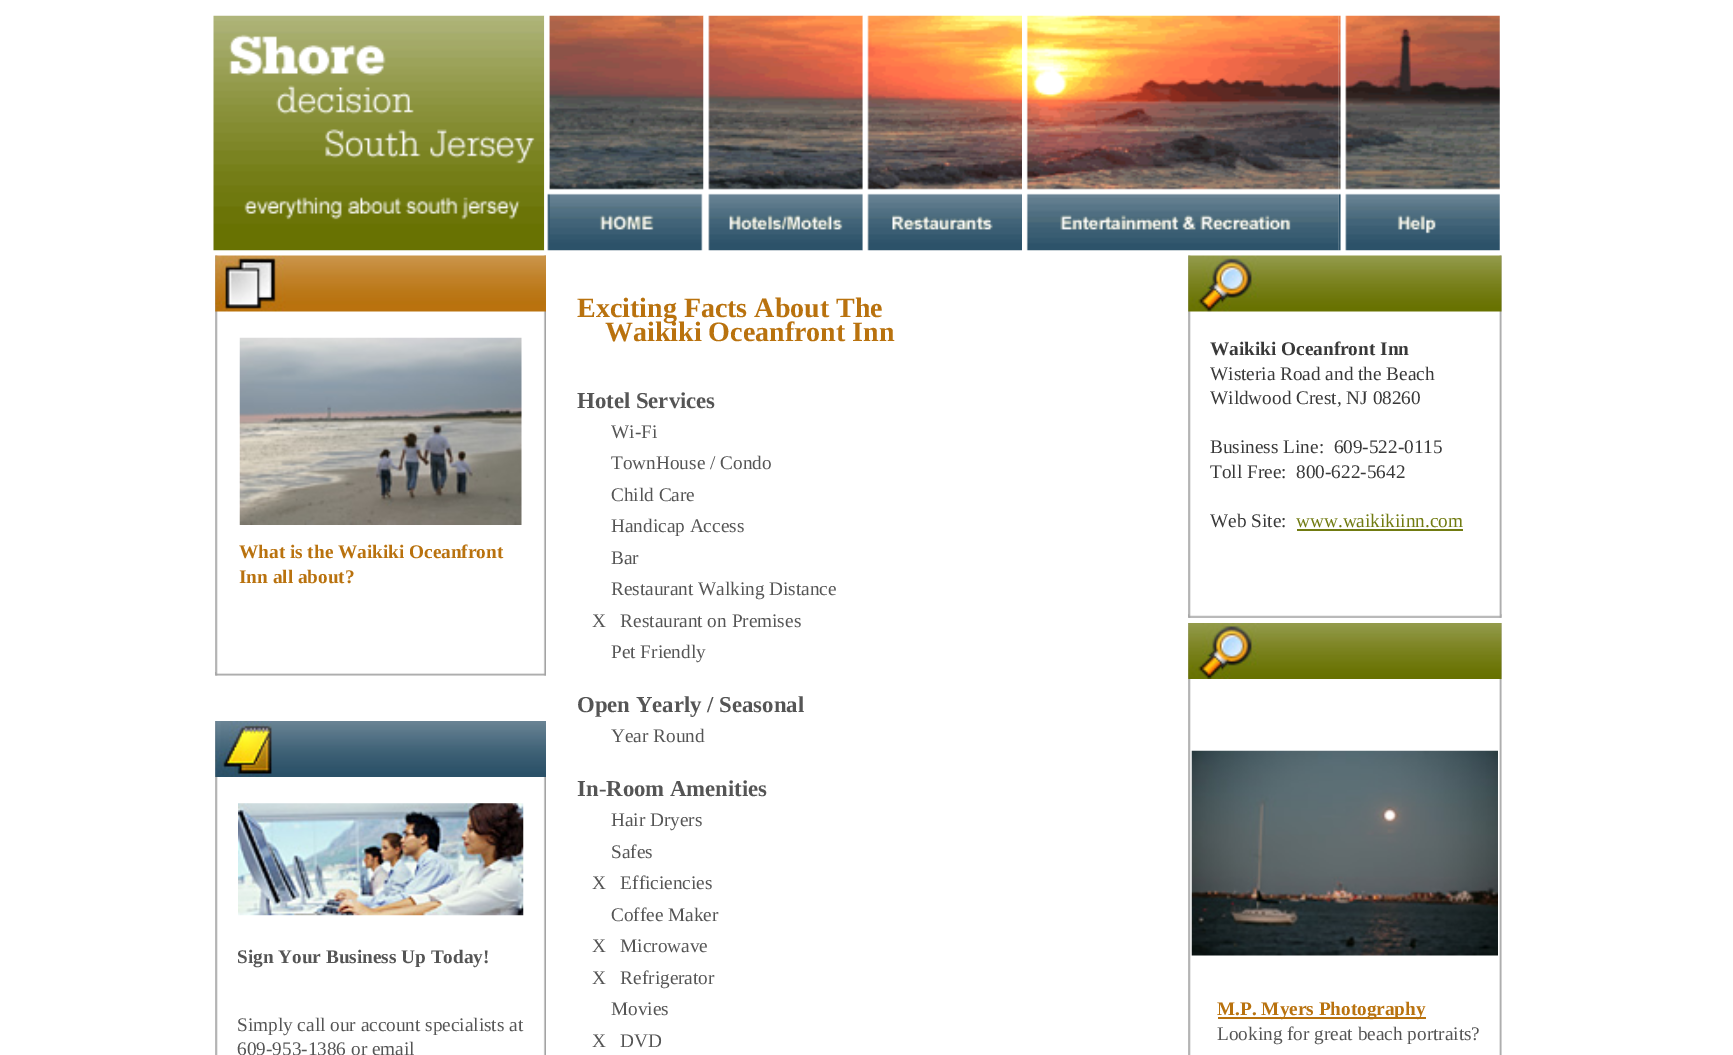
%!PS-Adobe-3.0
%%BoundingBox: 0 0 1733 1055
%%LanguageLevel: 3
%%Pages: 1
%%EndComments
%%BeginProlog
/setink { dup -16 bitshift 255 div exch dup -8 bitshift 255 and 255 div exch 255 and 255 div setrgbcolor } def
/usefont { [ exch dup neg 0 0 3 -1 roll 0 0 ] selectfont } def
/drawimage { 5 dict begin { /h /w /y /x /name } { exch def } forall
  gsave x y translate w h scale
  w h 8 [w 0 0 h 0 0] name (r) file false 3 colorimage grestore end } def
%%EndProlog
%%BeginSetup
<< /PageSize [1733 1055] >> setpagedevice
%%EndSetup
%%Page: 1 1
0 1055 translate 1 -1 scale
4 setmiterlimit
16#FFFFFF setink
0 0 1733 1055 rectfill
(img1.raw) 213 15 332 236 drawimage
(img2.raw) 544 15 160 236 drawimage
(img3.raw) 703 15 160 236 drawimage
(img4.raw) 862 15 160 236 drawimage
(img5.raw) 1026 15 313 236 drawimage
(img6.raw) 1338 15 162 236 drawimage
(img7.raw) 215 255 331 421 drawimage
(img8.raw) 215 672 331 4 drawimage
(img9.raw) 215 255 331 57 drawimage
(img10.raw) 239 337 283 188 drawimage
/LiberationSerif-Bold 19.25 usefont
16#B9720E setink
239 558 moveto (What is the Waikiki Oceanfront) show
239 583 moveto (Inn all about?) show
(img11.raw) 215 721 331 334 drawimage
(img12.raw) 215 721 331 56 drawimage
(img13.raw) 238 803 286 113 drawimage
16#555555 setink
237 963 moveto (Sign Your Business Up Today!) show
/LiberationSerif-Regular 19.25 usefont
237 1031 moveto (Simply call our account specialists at) show
237 1055 moveto (609-953-1386 or email) show
/LiberationSerif-Bold 28 usefont
16#B9720E setink
577 317 moveto (Exciting Facts About The) show
605 341 moveto (Waikiki Oceanfront Inn) show
/LiberationSerif-Bold 22.75 usefont
16#555555 setink
577 408 moveto (Hotel Services) show
/LiberationSerif-Regular 19.25 usefont
[
    [(Wi-Fi) 611 438]
    [(TownHouse / Condo) 611 469]
    [(Child Care) 611 501]
    [(Handicap Access) 611 532]
    [(Bar) 611 564]
    [(Restaurant Walking Distance) 611 595]
    [(X   Restaurant on Premises) 592 627]
    [(Pet Friendly) 611 658]
] { aload pop moveto show } forall
/LiberationSerif-Bold 22.75 usefont
577 712 moveto (Open Yearly / Seasonal) show
/LiberationSerif-Regular 19.25 usefont
611 742 moveto (Year Round) show
/LiberationSerif-Bold 22.75 usefont
577 796 moveto (In-Room Amenities) show
/LiberationSerif-Regular 19.25 usefont
[
    [(Hair Dryers) 611 826]
    [(Safes) 611 858]
    [(X   Efficiencies) 592 889]
    [(Coffee Maker) 611 921]
    [(X   Microwave) 592 952]
    [(X   Refrigerator) 592 984]
    [(Movies) 611 1015]
    [(X   DVD) 592 1047]
] { aload pop moveto show } forall
(img14.raw) 1188 255 314 363 drawimage
(img15.raw) 1188 614 314 4 drawimage
(img16.raw) 1188 255 314 57 drawimage
/LiberationSerif-Bold 19.25 usefont
16#393939 setink
1210 355 moveto (Waikiki Oceanfront Inn) show
/LiberationSerif-Regular 19.25 usefont
[
    [(Wisteria Road and the Beach) 1210 380]
    [(Wildwood Crest, NJ 08260) 1210 404]
    [(Business Line:  609-522-0115) 1210 453]
    [(Toll Free:  800-622-5642) 1210 478]
    [(Web Site:) 1210 527]
] { aload pop moveto show } forall
16#717B11 setink
1296 527 moveto (www.waikikiinn.com) show
1297 529 166 2 rectfill
(img17.raw) 1188 623 314 432 drawimage
(img18.raw) 1188 623 314 56 drawimage
(img19.raw) 1191 750 307 206 drawimage
16#B9720E setink
1218 1017 208 2 rectfill
/LiberationSerif-Bold 19.25 usefont
1217 1015 moveto (M.P. Myers Photography) show
/LiberationSerif-Regular 19.25 usefont
16#555555 setink
1217 1040 moveto (Looking for great beach portraits?) show
showpage
%%EOF
